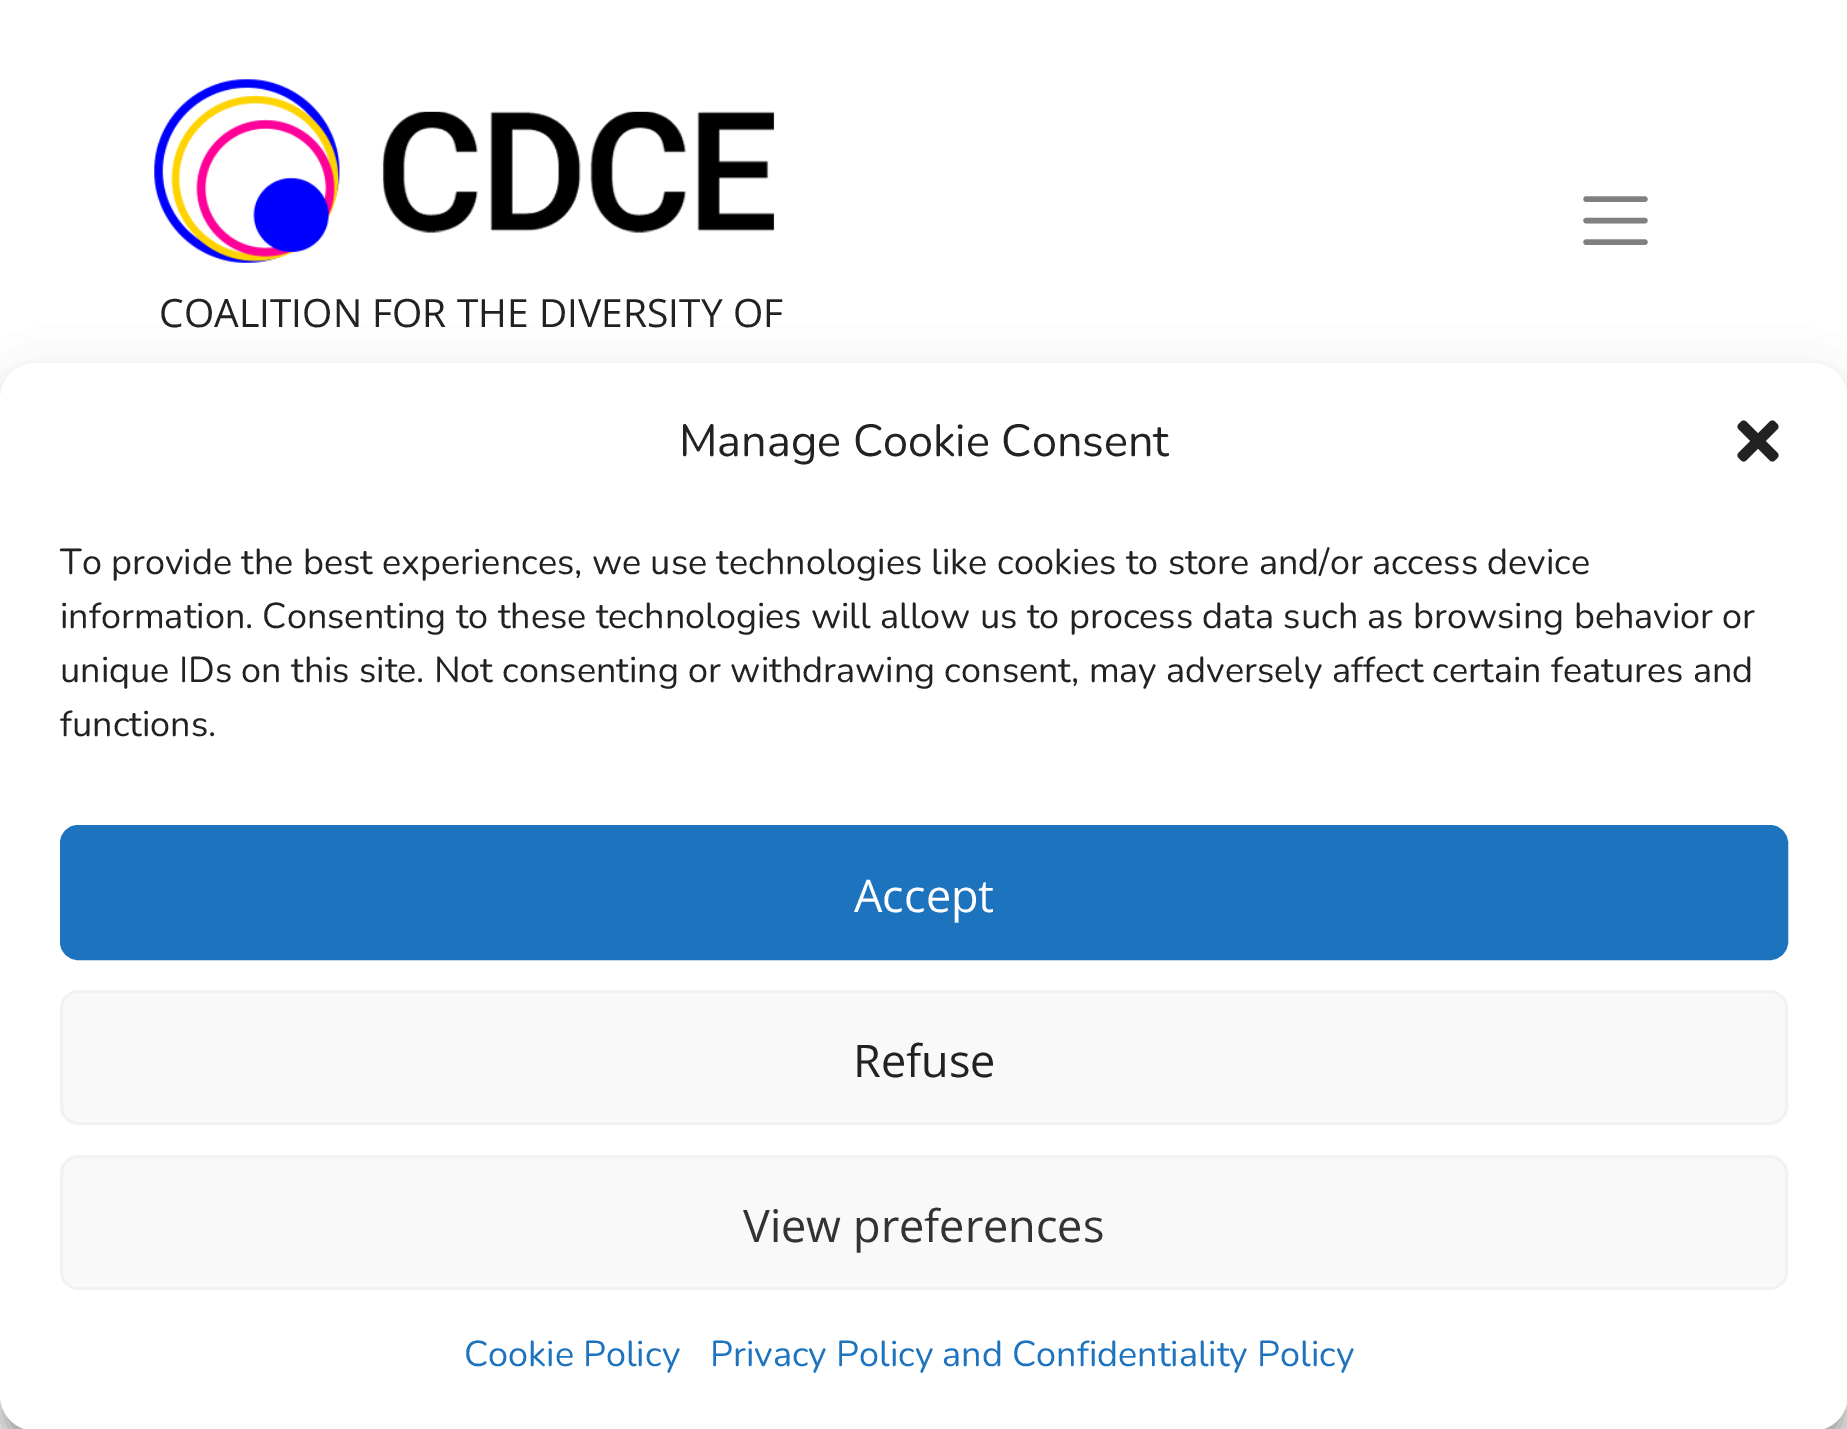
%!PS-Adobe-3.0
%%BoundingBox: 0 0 1847 1429
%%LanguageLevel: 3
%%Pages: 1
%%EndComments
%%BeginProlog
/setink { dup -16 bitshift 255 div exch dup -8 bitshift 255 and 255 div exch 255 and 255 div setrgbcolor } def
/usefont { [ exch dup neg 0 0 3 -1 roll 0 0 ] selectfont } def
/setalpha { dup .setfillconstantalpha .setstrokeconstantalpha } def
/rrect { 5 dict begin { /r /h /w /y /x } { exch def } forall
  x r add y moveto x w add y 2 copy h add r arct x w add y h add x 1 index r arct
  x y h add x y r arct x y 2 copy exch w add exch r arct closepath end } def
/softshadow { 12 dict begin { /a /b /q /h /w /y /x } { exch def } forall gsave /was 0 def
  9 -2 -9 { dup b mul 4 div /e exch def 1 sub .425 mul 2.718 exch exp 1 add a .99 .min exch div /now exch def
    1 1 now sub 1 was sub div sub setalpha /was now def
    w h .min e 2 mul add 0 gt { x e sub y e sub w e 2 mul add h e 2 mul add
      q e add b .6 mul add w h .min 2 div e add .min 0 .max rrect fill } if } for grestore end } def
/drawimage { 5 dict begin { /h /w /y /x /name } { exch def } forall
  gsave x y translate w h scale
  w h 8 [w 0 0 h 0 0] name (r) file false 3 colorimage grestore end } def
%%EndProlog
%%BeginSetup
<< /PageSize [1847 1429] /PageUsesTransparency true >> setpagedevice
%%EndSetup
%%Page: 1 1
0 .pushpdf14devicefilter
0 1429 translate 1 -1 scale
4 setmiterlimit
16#FFFFFF setink
0 0 1847 1429 rectfill
16#808080 setink
5.4 setlinewidth
1 setlinecap
1586 199 moveto 1645 199 lineto 1586 220.5 moveto 1645 220.5 lineto 1586 242 moveto 1645 242 lineto stroke
(img1.raw) 154 79 621 184 drawimage
/OpenSans-Regular 39 usefont
16#222222 setink
159 327 moveto (COALITION FOR THE DIVERSITY OF) show
16#000000 setink
0 381 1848 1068 36 9 0.23 softshadow
0 393 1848 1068 36 30 0.19 softshadow
16#FFFFFF setink
0 363 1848 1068 36 rrect fill
/Nunito-ExtraLight 45 usefont
16#222222 setink
679 456 moveto (Manage Cookie Consent) show
(img2.raw) 1737 420 42 42 drawimage
/Nunito-ExtraLight 36 usefont
[
    [(To provide the best experiences, we use technologies like cookies to store and/or access device) 60 574]
    [(information. Consenting to these technologies will allow us to process data such as browsing behavior or) 60 628]
    [(unique IDs on this site. Not consenting or withdrawing consent, may adversely affect certain features and) 60 682]
    [(functions.) 60 736]
] { aload pop moveto show } forall
16#1E73BE setink
61.5 826.5 1725 132 16.5 rrect gsave fill grestore
3 setlinewidth
0 setlinecap
stroke
/OpenSans-Regular 45 usefont
16#FFFFFF setink
854 912 moveto (Accept) show
16#F9F9F9 setink
61.5 991.5 1725 132 16.5 rrect gsave fill grestore
16#F2F2F2 setink
stroke
16#222222 setink
853 1077 moveto (Refuse) show
16#F9F9F9 setink
61.5 1156.5 1725 132 16.5 rrect gsave fill grestore
16#F2F2F2 setink
stroke
16#333333 setink
743 1242 moveto (View preferences) show
/Nunito-ExtraLight 36 usefont
16#1E73BE setink
464 1366 moveto (Cookie Policy) show
710 1366 moveto (Privacy Policy and Confidentiality Policy) show
.poppdf14devicefilter showpage
%%EOF
